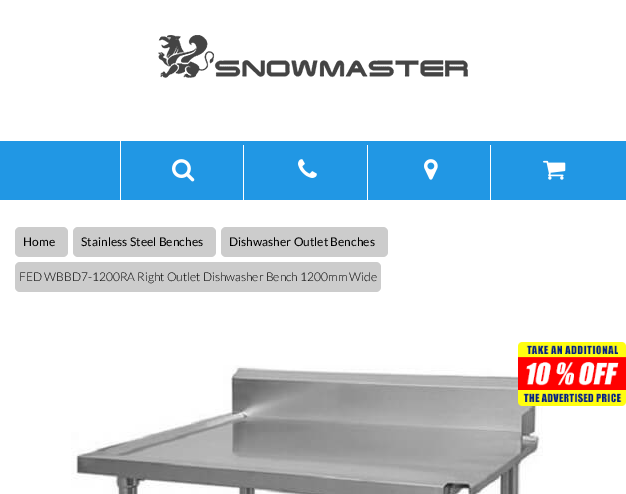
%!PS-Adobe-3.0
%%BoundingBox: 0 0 626 494
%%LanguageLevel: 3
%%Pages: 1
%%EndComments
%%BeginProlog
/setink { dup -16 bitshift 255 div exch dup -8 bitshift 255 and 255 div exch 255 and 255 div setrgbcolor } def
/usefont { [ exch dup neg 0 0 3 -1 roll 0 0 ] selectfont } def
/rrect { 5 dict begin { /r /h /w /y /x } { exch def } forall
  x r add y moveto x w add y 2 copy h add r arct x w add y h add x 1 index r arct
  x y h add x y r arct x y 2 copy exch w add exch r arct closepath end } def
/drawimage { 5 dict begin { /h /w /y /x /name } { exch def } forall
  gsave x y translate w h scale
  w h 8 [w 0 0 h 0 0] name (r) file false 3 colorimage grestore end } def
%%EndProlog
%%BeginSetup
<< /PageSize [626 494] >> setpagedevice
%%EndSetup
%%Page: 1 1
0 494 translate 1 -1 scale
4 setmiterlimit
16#FFFFFF setink
0 0 626 494 rectfill
(img1.raw) 158 35 310 43 drawimage
[
    [0 141 626 59 16#2197E4]
    [120 141 1 59 16#FFFFFF]
    [243 145 1 55 16#FFFFFF]
] { aload pop setink rectfill } forall
(img2.raw) 172 159 23 23 drawimage
367 145 1 55 rectfill
(img3.raw) 298 159 19 19 drawimage
490 145 1 55 rectfill
(img4.raw) 424 159 14 21 drawimage
(img5.raw) 543 160 23 20 drawimage
16#CCCCCC setink
15 227 53 30 5 rrect fill
/Lato-Regular 12 usefont
16#000000 setink
23 246 moveto (Home) show
16#CCCCCC setink
73 227 143 30 5 rrect fill
16#000000 setink
81 246 moveto (Stainless Steel Benches) show
16#CCCCCC setink
221 227 167 30 5 rrect fill
16#000000 setink
229 246 moveto (Dishwasher Outlet Benches) show
16#CCCCCC setink
15 262 366 30 5 rrect fill
/Lato-Light 12 usefont
16#000000 setink
19 281 moveto (FED WBBD7-1200RA Right Outlet Dishwasher Bench 1200mm Wide) show
(img6.raw) 71 365 472 129 drawimage
(img7.raw) 518 342 108 64 drawimage
showpage
%%EOF
